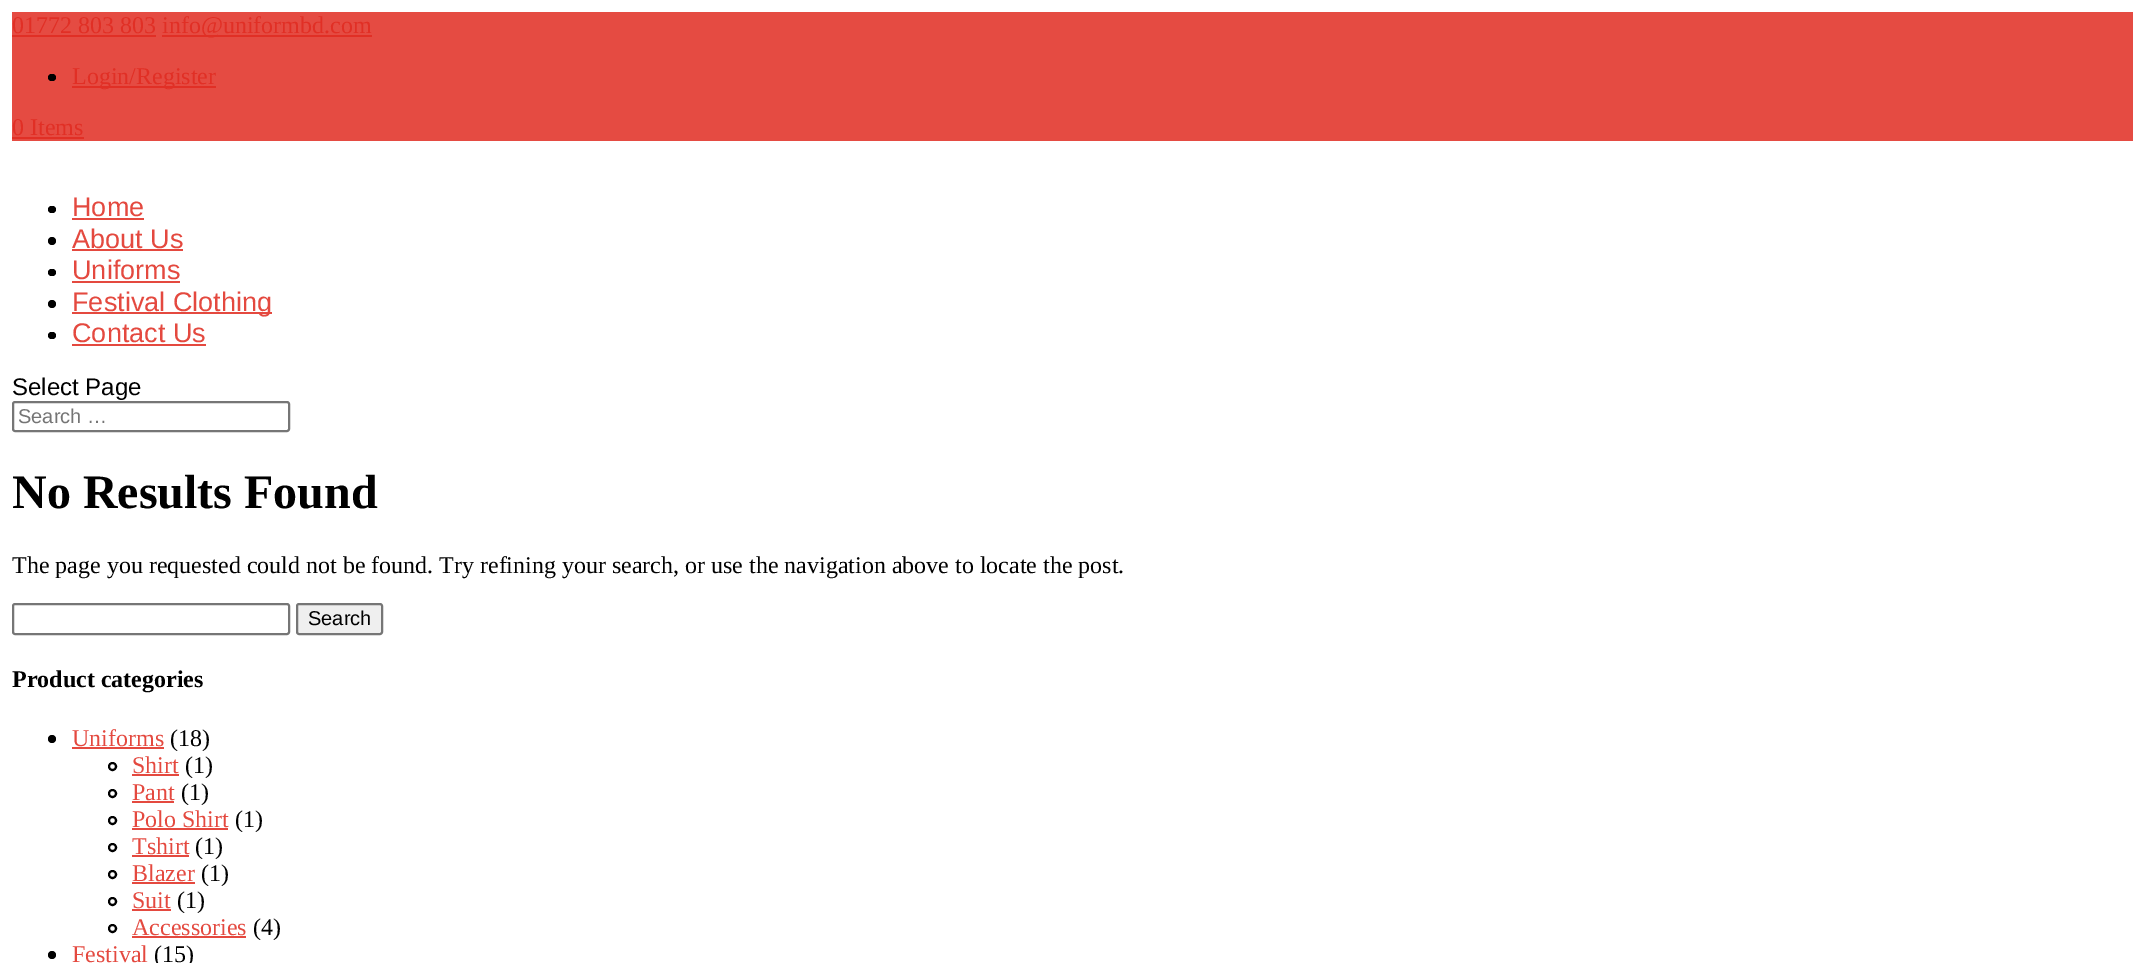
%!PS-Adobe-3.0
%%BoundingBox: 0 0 2145 963
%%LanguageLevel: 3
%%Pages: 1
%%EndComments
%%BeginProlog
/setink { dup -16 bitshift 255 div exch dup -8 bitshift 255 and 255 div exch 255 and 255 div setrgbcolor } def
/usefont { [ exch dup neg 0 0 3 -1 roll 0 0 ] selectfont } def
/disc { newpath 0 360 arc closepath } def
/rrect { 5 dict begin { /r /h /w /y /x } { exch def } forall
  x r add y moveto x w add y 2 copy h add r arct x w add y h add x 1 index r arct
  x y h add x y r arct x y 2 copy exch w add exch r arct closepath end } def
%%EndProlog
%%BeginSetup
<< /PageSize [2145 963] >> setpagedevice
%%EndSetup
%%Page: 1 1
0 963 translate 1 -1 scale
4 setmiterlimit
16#FFFFFF setink
0 0 2145 963 rectfill
16#E54B42 setink
12 12 2121 129 rectfill
/LiberationSerif-Regular 24 usefont
16#E12F25 setink
12 33 moveto (01772 803 803) show
12 35 144 2 rectfill
162 35 210 2 rectfill
162 33 moveto (info@uniformbd.com) show
16#000000 setink
48 74 8 7 3.5 rrect fill
16#E12F25 setink
72 86 144 2 rectfill
72 84 moveto (Login/Register) show
12 135 moveto (0 Items) show
12 137 72 2 rectfill
16#000000 setink
48 206 8 7 3.5 rrect fill
/LiberationSans-Regular 27 usefont
16#E4493F setink
72 216 moveto (Home) show
72 218 72 2 rectfill
16#000000 setink
52 241 4 disc fill
16#E4493F setink
72 248 moveto (About Us) show
72 249 111 2 rectfill
16#000000 setink
48 269 8 7 3.5 rrect fill
16#E4493F setink
72 279 moveto (Uniforms) show
72 281 108 2 rectfill
16#000000 setink
52 304 4 disc fill
16#E4493F setink
72 312 200 2 rectfill
72 311 moveto (Festival Clothing) show
16#000000 setink
48 332 8 7 3.5 rrect fill
16#E4493F setink
72 342 moveto (Contact Us) show
72 344 134 2 rectfill
/LiberationSans-Regular 24 usefont
16#000000 setink
12 395 moveto (Select Page) show
16#767676 setink
2 setlinewidth
13 402 276 29 2 rrect stroke
/LiberationSans-Regular 20 usefont
16#757575 setink
18 423 moveto (Search …) show
/LiberationSerif-Bold 48 usefont
16#000000 setink
12 508 moveto (No Results Found) show
/LiberationSerif-Regular 24 usefont
12 573 moveto (The page you requested could not be found. Try refining your search, or use the navigation above to locate the post.) show
16#767676 setink
13 604 276 30 2 rrect stroke
16#EFEFEF setink
297 604 85 30 2 rrect gsave fill grestore
16#767676 setink
stroke
/LiberationSans-Regular 20 usefont
16#000000 setink
308 625 moveto (Search) show
/LiberationSerif-Bold 24 usefont
12 687 moveto (Product categories) show
52 739 4 disc fill
/LiberationSerif-Regular 24 usefont
16#E4493F setink
72 746 moveto (Uniforms) show
72 747 92 2 rectfill
16#000000 setink
170 746 moveto (\(18\)) show
112.5 766.5 3.5 disc stroke
16#E4493F setink
132 773 moveto (Shirt) show
132 774 47 2 rectfill
16#000000 setink
185 773 moveto (\(1\)) show
112.5 793.5 3.5 disc stroke
16#E4493F setink
132 800 moveto (Pant) show
132 801 42 2 rectfill
16#000000 setink
181 800 moveto (\(1\)) show
112.5 820.5 3.5 disc stroke
16#E4493F setink
132 827 moveto (Polo Shirt) show
132 828 96 2 rectfill
16#000000 setink
235 827 moveto (\(1\)) show
112.5 847.5 3.5 disc stroke
16#E4493F setink
132 854 moveto (Tshirt) show
132 855 57 2 rectfill
16#000000 setink
195 854 moveto (\(1\)) show
112.5 874.5 3.5 disc stroke
16#E4493F setink
132 881 moveto (Blazer) show
132 882 63 2 rectfill
16#000000 setink
201 881 moveto (\(1\)) show
112.5 901.5 3.5 disc stroke
16#E4493F setink
132 908 moveto (Suit) show
132 909 39 2 rectfill
16#000000 setink
177 908 moveto (\(1\)) show
112.5 928.5 3.5 disc stroke
16#E4493F setink
132 935 moveto (Accessories) show
132 936 114 2 rectfill
16#000000 setink
253 935 moveto (\(4\)) show
52 955 4 disc fill
16#E4493F setink
72 962 moveto (Festival) show
16#000000 setink
154 962 moveto (\(15\)) show
showpage
%%EOF
